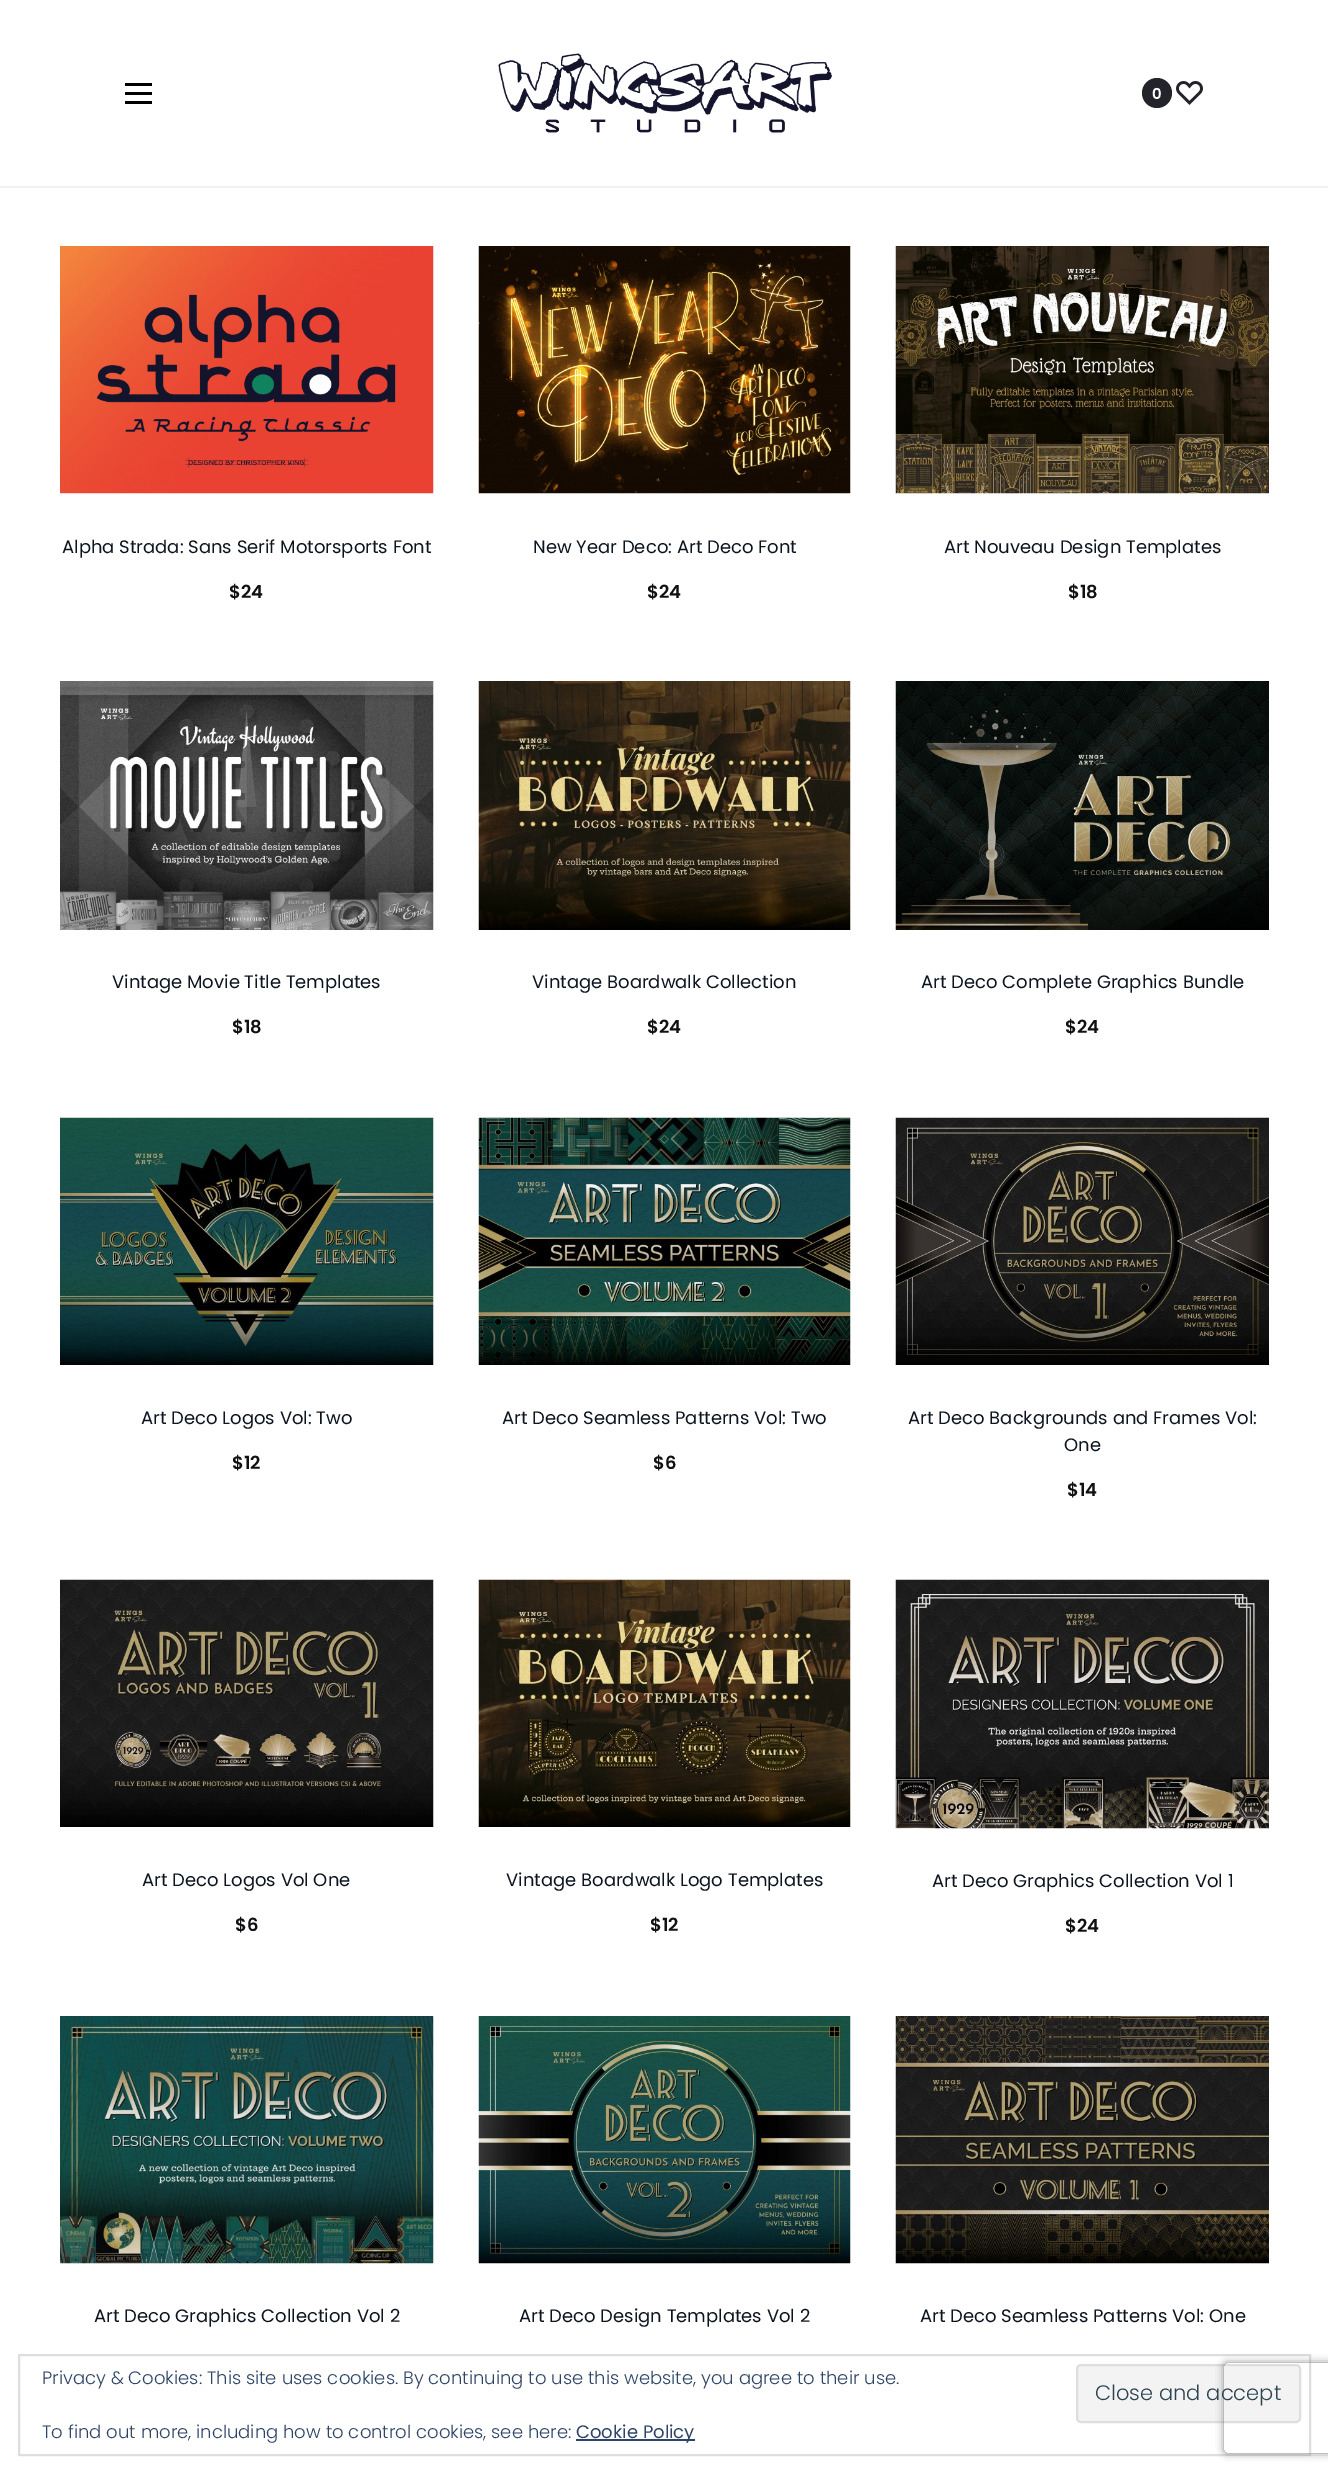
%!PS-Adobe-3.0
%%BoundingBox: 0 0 1328 2473
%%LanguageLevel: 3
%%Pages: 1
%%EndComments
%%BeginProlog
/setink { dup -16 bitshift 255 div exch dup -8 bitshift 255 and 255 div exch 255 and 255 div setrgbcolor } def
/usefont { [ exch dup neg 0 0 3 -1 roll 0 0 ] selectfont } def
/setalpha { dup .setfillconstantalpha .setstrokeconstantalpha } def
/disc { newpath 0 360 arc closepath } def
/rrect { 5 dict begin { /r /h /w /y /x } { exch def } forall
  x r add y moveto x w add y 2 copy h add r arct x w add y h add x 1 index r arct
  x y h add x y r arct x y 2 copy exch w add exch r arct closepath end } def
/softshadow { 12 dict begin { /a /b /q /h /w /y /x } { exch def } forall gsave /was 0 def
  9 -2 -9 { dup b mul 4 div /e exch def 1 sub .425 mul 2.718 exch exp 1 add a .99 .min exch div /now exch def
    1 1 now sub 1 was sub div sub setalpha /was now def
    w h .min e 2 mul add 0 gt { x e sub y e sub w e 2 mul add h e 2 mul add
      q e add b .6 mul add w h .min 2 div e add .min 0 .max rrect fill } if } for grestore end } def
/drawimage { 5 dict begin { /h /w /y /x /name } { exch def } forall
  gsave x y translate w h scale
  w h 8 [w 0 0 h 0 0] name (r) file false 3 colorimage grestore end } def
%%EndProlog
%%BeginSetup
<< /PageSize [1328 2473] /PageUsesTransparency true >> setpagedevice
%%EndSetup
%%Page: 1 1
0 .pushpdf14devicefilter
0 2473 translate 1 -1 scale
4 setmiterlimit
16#FFFFFF setink
0 0 1328 2473 rectfill
[
    [0 186 1328 2 16#F1F2F4]
    [125 92 27 3 16#000000]
    [125 83 27 3 16#000000]
    [125 101 27 3 16#000000]
] { aload pop setink rectfill } forall
(img1.raw) 498 53 334 80 drawimage
16#23232C setink
1157 93 15 disc fill
/Poppins-SemiBold 15 usefont
16#FFFFFF setink
1152 99 moveto (0) show
(img2.raw) 1176 81 27 24 drawimage
(img3.raw) 60 246 374 248 drawimage
/Poppins-Regular 18 usefont
16#0B141F setink
62 553 moveto (Alpha Strada: Sans Serif Motorsports Font) show
/Poppins-SemiBold 18 usefont
16#111114 setink
229 598 moveto ($24) show
(img4.raw) 478 246 373 248 drawimage
/Poppins-Regular 18 usefont
16#0B141F setink
533 553 moveto (New Year Deco: Art Deco Font) show
/Poppins-SemiBold 18 usefont
16#111114 setink
647 598 moveto ($24) show
(img5.raw) 895 246 374 248 drawimage
/Poppins-Regular 18 usefont
16#0B141F setink
944 553 moveto (Art Nouveau Design Templates) show
/Poppins-SemiBold 18 usefont
16#111114 setink
1068 598 moveto ($18) show
(img6.raw) 60 681 374 249 drawimage
/Poppins-Regular 18 usefont
16#0B141F setink
112 988 moveto (Vintage Movie Title Templates) show
/Poppins-SemiBold 18 usefont
16#111114 setink
232 1033 moveto ($18) show
(img7.raw) 478 681 373 249 drawimage
/Poppins-Regular 18 usefont
16#0B141F setink
532 988 moveto (Vintage Boardwalk Collection) show
/Poppins-SemiBold 18 usefont
16#111114 setink
647 1033 moveto ($24) show
(img8.raw) 895 681 374 249 drawimage
/Poppins-Regular 18 usefont
16#0B141F setink
921 988 moveto (Art Deco Complete Graphics Bundle) show
/Poppins-SemiBold 18 usefont
16#111114 setink
1065 1033 moveto ($24) show
(img9.raw) 60 1117 374 248 drawimage
/Poppins-Regular 18 usefont
16#0B141F setink
141 1424 moveto (Art Deco Logos Vol: Two) show
/Poppins-SemiBold 18 usefont
16#111114 setink
232 1469 moveto ($12) show
(img10.raw) 478 1117 373 248 drawimage
/Poppins-Regular 18 usefont
16#0B141F setink
502 1424 moveto (Art Deco Seamless Patterns Vol: Two) show
/Poppins-SemiBold 18 usefont
16#111114 setink
653 1469 moveto ($6) show
(img11.raw) 895 1117 374 248 drawimage
/Poppins-Regular 18 usefont
16#0B141F setink
908 1424 moveto (Art Deco Backgrounds and Frames Vol:) show
1064 1451 moveto (One) show
/Poppins-SemiBold 18 usefont
16#111114 setink
1067 1496 moveto ($14) show
(img12.raw) 60 1579 374 248 drawimage
/Poppins-Regular 18 usefont
16#0B141F setink
142 1886 moveto (Art Deco Logos Vol One) show
/Poppins-SemiBold 18 usefont
16#111114 setink
235 1931 moveto ($6) show
(img13.raw) 478 1579 373 248 drawimage
/Poppins-Regular 18 usefont
16#0B141F setink
506 1886 moveto (Vintage Boardwalk Logo Templates) show
/Poppins-SemiBold 18 usefont
16#111114 setink
650 1931 moveto ($12) show
(img14.raw) 895 1579 374 250 drawimage
/Poppins-Regular 18 usefont
16#0B141F setink
932 1887 moveto (Art Deco Graphics Collection Vol 1) show
/Poppins-SemiBold 18 usefont
16#111114 setink
1065 1932 moveto ($24) show
(img15.raw) 60 2016 374 248 drawimage
/Poppins-Regular 18 usefont
16#0B141F setink
94 2322 moveto (Art Deco Graphics Collection Vol 2) show
(img16.raw) 478 2016 373 248 drawimage
519 2322 moveto (Art Deco Design Templates Vol 2) show
(img17.raw) 895 2016 374 248 drawimage
920 2322 moveto (Art Deco Seamless Patterns Vol: One) show
16#DEDEDE setink
2 setlinewidth
19 2355 1291 100 rectstroke
16#F3F3F3 setink
1077 2365 223 57 4 rrect gsave fill grestore
16#DEDEDE setink
stroke
gsave
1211 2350 moveto 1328 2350 lineto 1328 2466 lineto 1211 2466 lineto closepath 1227 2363 moveto 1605 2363 lineto 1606.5 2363 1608 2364.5 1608 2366 curveto 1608 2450 lineto 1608 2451.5 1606.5 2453 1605 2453 curveto 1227 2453 lineto 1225.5 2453 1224 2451.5 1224 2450 curveto 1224 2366 lineto 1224 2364.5 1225.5 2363 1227 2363 curveto closepath eoclip newpath
16#808080 setink
1224 2363 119 90 3 4 1 softshadow
grestore
/Poppins-Light 18 usefont
16#2E4467 setink
42 2384 moveto (Privacy & Cookies: This site uses cookies. By continuing to use this website, you agree to their use.) show
/Poppins-Light 21 usefont
16#2E4453 setink
1095 2400 moveto (Close and accept) show
/Poppins-Light 18 usefont
16#2E4467 setink
42 2438 moveto (To find out more, including how to control cookies, see here:) show
576 2439 119 2 rectfill
/Poppins-Regular 18 usefont
576 2438 moveto (Cookie Policy) show
.poppdf14devicefilter showpage
%%EOF
